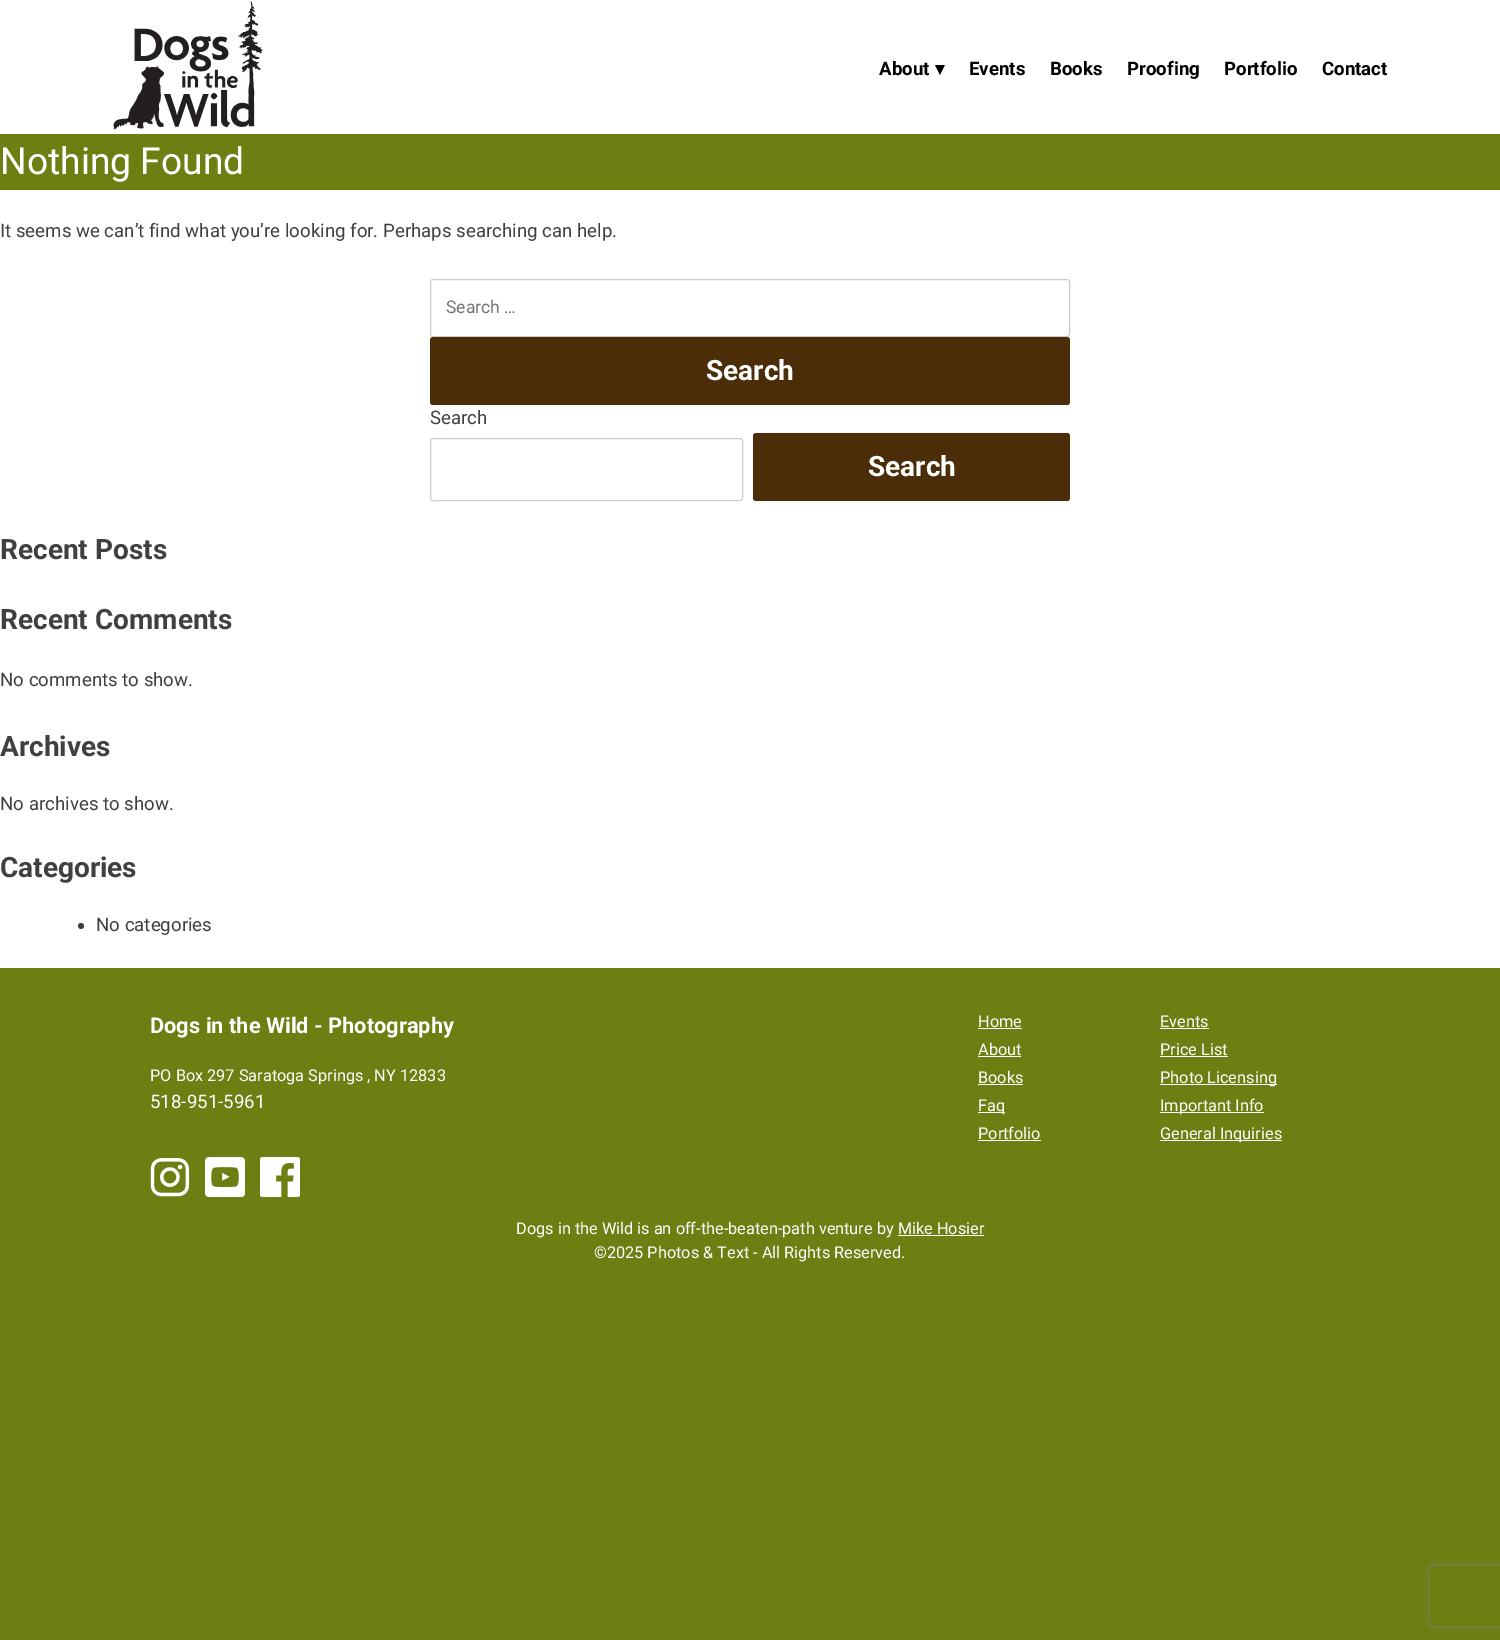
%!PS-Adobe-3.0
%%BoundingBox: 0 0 1500 1640
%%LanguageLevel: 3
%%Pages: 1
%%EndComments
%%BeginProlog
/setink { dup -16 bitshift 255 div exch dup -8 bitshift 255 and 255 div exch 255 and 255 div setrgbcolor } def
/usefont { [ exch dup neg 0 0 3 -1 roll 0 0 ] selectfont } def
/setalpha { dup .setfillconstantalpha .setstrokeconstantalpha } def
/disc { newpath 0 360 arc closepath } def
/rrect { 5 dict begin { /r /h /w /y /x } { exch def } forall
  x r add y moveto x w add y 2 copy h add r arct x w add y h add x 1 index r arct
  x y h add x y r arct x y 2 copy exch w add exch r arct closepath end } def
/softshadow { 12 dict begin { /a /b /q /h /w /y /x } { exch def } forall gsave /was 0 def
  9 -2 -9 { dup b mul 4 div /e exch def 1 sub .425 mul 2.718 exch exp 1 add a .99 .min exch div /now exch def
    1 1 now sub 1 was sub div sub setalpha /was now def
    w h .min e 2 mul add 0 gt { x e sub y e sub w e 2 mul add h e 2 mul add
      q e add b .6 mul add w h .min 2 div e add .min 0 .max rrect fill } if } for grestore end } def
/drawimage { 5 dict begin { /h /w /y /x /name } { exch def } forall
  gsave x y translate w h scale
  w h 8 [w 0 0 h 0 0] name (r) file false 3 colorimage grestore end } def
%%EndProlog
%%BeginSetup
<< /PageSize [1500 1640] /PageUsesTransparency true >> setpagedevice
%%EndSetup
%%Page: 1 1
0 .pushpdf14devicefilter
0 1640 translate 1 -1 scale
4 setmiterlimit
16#6D7E12 setink
0 0 1500 1640 rectfill
16#FFFFFF setink
0 0 1500 968 rectfill
(img1.raw) 113 1 150 129 drawimage
/Roboto-Bold 18.65 usefont
16#000000 setink
879 75 moveto (About) show
/DejaVuSans-Bold 18.65 usefont
935 75 moveto (▾) show
/Roboto-Bold 18.65 usefont
[
    [(Events) 969 75]
    [(Books) 1050 75]
    [(Proofing) 1127 75]
    [(Portfolio) 1224 75]
    [(Contact) 1322 75]
] { aload pop moveto show } forall
16#6D7E12 setink
0 134 1500 56 rectfill
/Roboto-Regular 37.25 usefont
16#FFFFFF setink
0 174 moveto (Nothing Found) show
/Roboto-Regular 18.65 usefont
16#404040 setink
0 237 moveto (It seems we can’t find what you’re looking for. Perhaps searching can help.) show
16#CCCCCC setink
430.5 279.5 639 57 2.5 rrect stroke
/Roboto-Regular 17.5 usefont
16#757575 setink
446 313 moveto (Search …) show
16#4B2D0A setink
430 337 640 68 3 rrect fill
/Roboto-Bold 28 usefont
16#FFFFFF setink
706 380 moveto (Search) show
/Roboto-Regular 18.65 usefont
16#404040 setink
430 424 moveto (Search) show
16#CCCCCC setink
430.5 438.5 312 62 2.5 rrect stroke
16#4B2D0A setink
753 433 317 68 3 rrect fill
/Roboto-Bold 28 usefont
16#FFFFFF setink
868 476 moveto (Search) show
16#404040 setink
0 559 moveto (Recent Posts) show
0 629 moveto (Recent Comments) show
/Roboto-Regular 18.65 usefont
0 686 moveto (No comments to show.) show
/Roboto-Bold 28 usefont
0 756 moveto (Archives) show
/Roboto-Regular 18.65 usefont
0 810 moveto (No archives to show.) show
/Roboto-Bold 28 usefont
0 877 moveto (Categories) show
81 926 3 disc fill
/Roboto-Regular 18.65 usefont
96 931 moveto (No categories) show
/Roboto-Bold 21.8 usefont
16#FFFFFF setink
150 1033 moveto (Dogs in the Wild - Photography) show
/Roboto-Regular 16.3 usefont
150 1081 moveto (PO Box 297 Saratoga Springs , NY 12833) show
/Roboto-Regular 18.65 usefont
150 1108 moveto (518-951-5961) show
(img2.raw) 150 1158 40 39 drawimage
(img3.raw) 205 1157 40 40 drawimage
(img4.raw) 260 1157 40 40 drawimage
/Roboto-Regular 16.3 usefont
978 1027 moveto (Home) show
978 1028 44 1 rectfill
978 1055 moveto (About) show
978 1056 43 1 rectfill
978 1083 moveto (Books) show
978 1084 45 1 rectfill
978 1112 27 1 rectfill
978 1111 moveto (Faq) show
978 1139 moveto (Portfolio) show
978 1140 63 1 rectfill
1160 1027 moveto (Events) show
1160 1028 49 1 rectfill
1160 1055 moveto (Price List) show
1160 1056 68 1 rectfill
1160 1084 117 1 rectfill
1160 1083 moveto (Photo Licensing) show
1160 1112 104 1 rectfill
1160 1111 moveto (Important Info) show
1160 1140 122 1 rectfill
1160 1139 moveto (General Inquiries) show
516 1234 moveto (Dogs in the Wild is an off-the-beaten-path venture by Mike Hosier) show
898 1235 86 1 rectfill
594 1258 moveto (©2025 Photos & Text - All Rights Reserved.) show
gsave
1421 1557 moveto 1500 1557 lineto 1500 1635 lineto 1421 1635 lineto closepath 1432 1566 moveto 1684 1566 lineto 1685 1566 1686 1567 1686 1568 curveto 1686 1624 lineto 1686 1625 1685 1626 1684 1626 curveto 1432 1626 lineto 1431 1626 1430 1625 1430 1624 curveto 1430 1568 lineto 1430 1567 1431 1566 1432 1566 curveto closepath eoclip newpath
16#808080 setink
1430 1566 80 60 2 2.5 1 softshadow
grestore
.poppdf14devicefilter showpage
%%EOF
